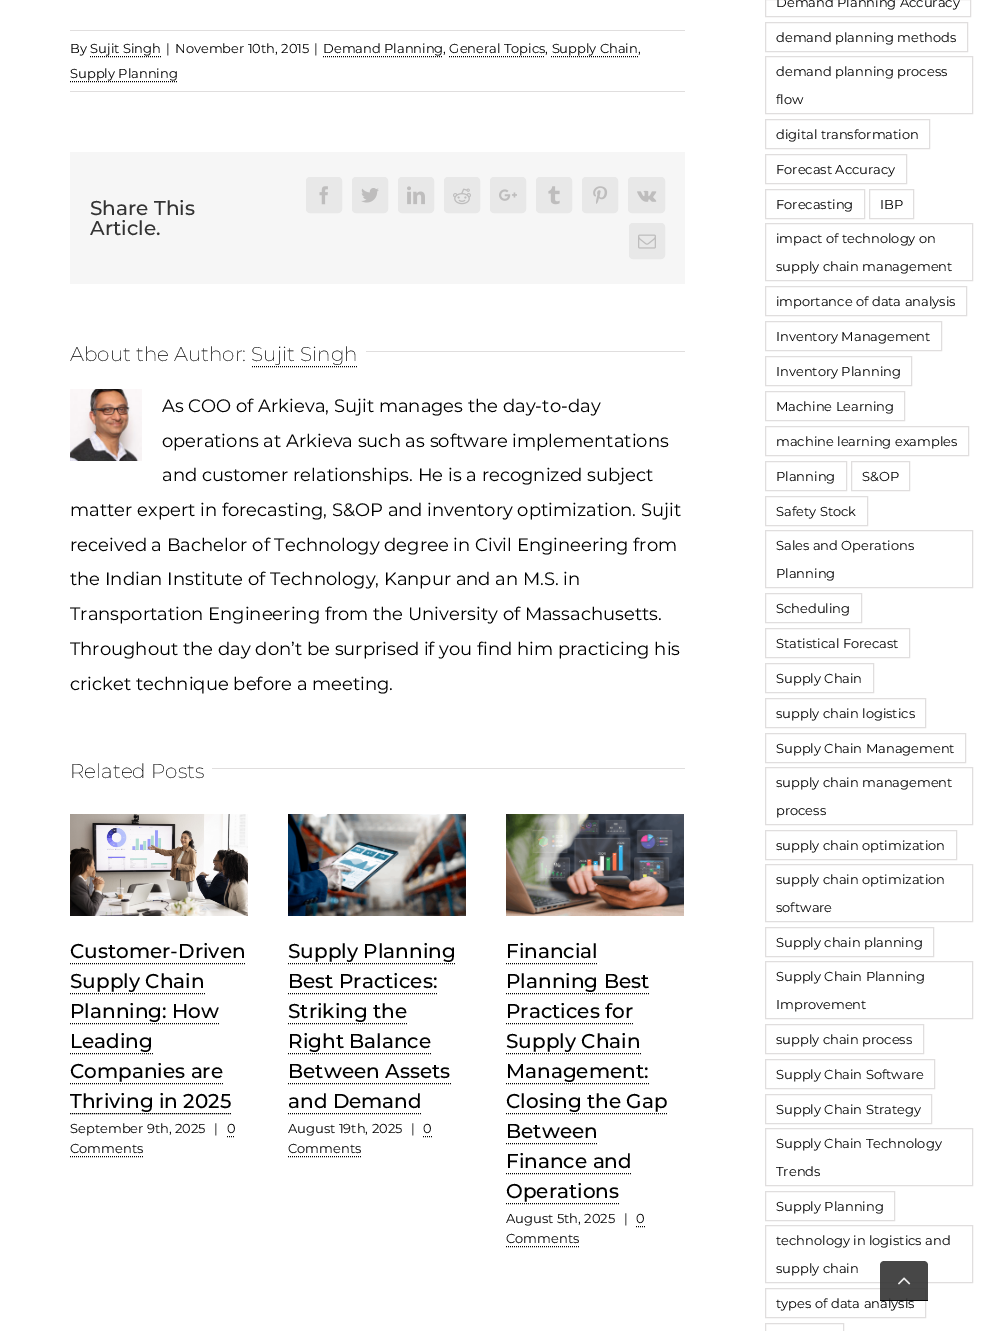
%!PS-Adobe-3.0
%%BoundingBox: 0 0 1003 1331
%%LanguageLevel: 3
%%Pages: 1
%%EndComments
%%BeginProlog
/setink { dup -16 bitshift 255 div exch dup -8 bitshift 255 and 255 div exch 255 and 255 div setrgbcolor } def
/usefont { [ exch dup neg 0 0 3 -1 roll 0 0 ] selectfont } def
/setalpha { dup .setfillconstantalpha .setstrokeconstantalpha } def
/rrect { 5 dict begin { /r /h /w /y /x } { exch def } forall
  x r add y moveto x w add y 2 copy h add r arct x w add y h add x 1 index r arct
  x y h add x y r arct x y 2 copy exch w add exch r arct closepath end } def
/drawimage { 5 dict begin { /h /w /y /x /name } { exch def } forall
  gsave x y translate w h scale
  w h 8 [w 0 0 h 0 0] name (r) file false 3 colorimage grestore end } def
%%EndProlog
%%BeginSetup
<< /PageSize [1003 1331] /PageUsesTransparency true >> setpagedevice
%%EndSetup
%%Page: 1 1
0 .pushpdf14devicefilter
0 1331 translate 1 -1 scale
4 setmiterlimit
16#FFFFFF setink
0 0 1003 1331 rectfill
16#E0DEDE setink
70 30 615 1 rectfill
70 91 615 1 rectfill
/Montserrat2-Thin 13 usefont
16#000000 setink
[
    [(By Sujit Singh) 70 53]
    [(|) 166 53]
    [(November 10th, 2015) 175 53]
    [(|) 314 53]
    [(Demand Planning, General Topics, Supply Chain,) 323 53]
] { aload pop moveto show } forall
[1 1] 0 setdash
323 56.5 moveto 443 56.5 lineto stroke
90 56.5 moveto 161 56.5 lineto stroke
449 56.5 moveto 545 56.5 lineto stroke
551 56.5 moveto 638 56.5 lineto stroke
70 78 moveto (Supply Planning) show
70 81.5 moveto 178 81.5 lineto stroke
16#F6F6F6 setink
70 152 615 132 rectfill
/Montserrat-Thin 20 usefont
16#333333 setink
90 215 moveto (Share This) show
90 235 moveto (Article.) show
16#E8E8E8 setink
306.5 177.5 35 35 3.5 rrect gsave fill grestore
[] 0 setdash
stroke
(img1.raw) 319 186 9 19 drawimage
352.5 177.5 35 35 3.5 rrect gsave fill grestore
stroke
(img2.raw) 361 188 18 15 drawimage
398.5 177.5 35 35 3.5 rrect gsave fill grestore
stroke
(img3.raw) 407 186 18 19 drawimage
444.5 177.5 35 35 3.5 rrect gsave fill grestore
stroke
(img4.raw) 453 188 18 17 drawimage
490.5 177.5 35 35 3.5 rrect gsave fill grestore
stroke
(img5.raw) 499 189 18 12 drawimage
536.5 177.5 35 35 3.5 rrect gsave fill grestore
stroke
(img6.raw) 548 186 12 19 drawimage
582.5 177.5 35 35 3.5 rrect gsave fill grestore
stroke
(img7.raw) 593 186 15 18 drawimage
628.5 177.5 36 35 3.5 rrect gsave fill grestore
stroke
(img8.raw) 637 190 20 12 drawimage
629.5 223.5 35 35 3.5 rrect gsave fill grestore
stroke
(img9.raw) 638 234 18 15 drawimage
/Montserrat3-Thin 20 usefont
16#000000 setink
70 361 moveto (About the Author: Sujit Singh) show
[1 1] 0 setdash
252 366.5 moveto 358 366.5 lineto stroke
16#E0DEDE setink
366 351 319 1 rectfill
(img10.raw) 70 389 72 72 drawimage
/Montserrat2-Thin 18 usefont
16#000000 setink
[
    [(As COO of Arkieva, Sujit manages the day-to-day) 162 412]
    [(operations at Arkieva such as software implementations) 162 447]
    [(and customer relationships. He is a recognized subject) 162 481]
    [(matter expert in forecasting, S&OP and inventory optimization. Sujit) 70 516]
    [(received a Bachelor of Technology degree in Civil Engineering from) 70 551]
    [(the Indian Institute of Technology, Kanpur and an M.S. in) 70 585]
    [(Transportation Engineering from the University of Massachusetts.) 70 620]
    [(Throughout the day don’t be surprised if you find him practicing his) 70 655]
    [(cricket technique before a meeting.) 70 690]
] { aload pop moveto show } forall
/Montserrat3-Thin 20 usefont
70 778 moveto (Related Posts) show
16#E0DEDE setink
212 768 473 1 rectfill
(img11.raw) 70 814 178 102 drawimage
/Montserrat-Thin 20 usefont
16#000000 setink
70 958 moveto (Customer-Driven) show
70 963.5 moveto 246 963.5 lineto stroke
70 988 moveto (Supply Chain) show
70 993.5 moveto 205 993.5 lineto stroke
70 1018 moveto (Planning: How) show
70 1023.5 moveto 219 1023.5 lineto stroke
70 1048 moveto (Leading) show
70 1053.5 moveto 153 1053.5 lineto stroke
70 1078 moveto (Companies are) show
70 1083.5 moveto 223 1083.5 lineto stroke
70 1108 moveto (Thriving in 2025) show
70 1113.5 moveto 231 1113.5 lineto stroke
/Montserrat2-Thin 13 usefont
[
    [(September 9th, 2025) 70 1133]
    [(|) 214 1133]
    [(0) 227 1133]
] { aload pop moveto show } forall
227 1136.5 moveto 235 1136.5 lineto stroke
70 1153 moveto (Comments) show
70 1156.5 moveto 143 1156.5 lineto stroke
(img12.raw) 288 814 178 102 drawimage
/Montserrat-Thin 20 usefont
288 958 moveto (Supply Planning) show
288 963.5 moveto 456 963.5 lineto stroke
288 988 moveto (Best Practices:) show
288 993.5 moveto 437 993.5 lineto stroke
288 1018 moveto (Striking the) show
288 1023.5 moveto 408 1023.5 lineto stroke
288 1048 moveto (Right Balance) show
288 1053.5 moveto 431 1053.5 lineto stroke
288 1078 moveto (Between Assets) show
288 1083.5 moveto 451 1083.5 lineto stroke
288 1108 moveto (and Demand) show
288 1113.5 moveto 422 1113.5 lineto stroke
/Montserrat2-Thin 13 usefont
[
    [(August 19th, 2025) 288 1133]
    [(|) 411 1133]
    [(0) 423 1133]
] { aload pop moveto show } forall
423 1136.5 moveto 432 1136.5 lineto stroke
288 1153 moveto (Comments) show
288 1156.5 moveto 361 1156.5 lineto stroke
(img13.raw) 506 814 178 102 drawimage
/Montserrat-Thin 20 usefont
506 958 moveto (Financial) show
506 963.5 moveto 598 963.5 lineto stroke
506 988 moveto (Planning Best) show
506 993.5 moveto 649 993.5 lineto stroke
506 1018 moveto (Practices for) show
506 1023.5 moveto 633 1023.5 lineto stroke
506 1048 moveto (Supply Chain) show
506 1053.5 moveto 641 1053.5 lineto stroke
506 1078 moveto (Management:) show
506 1083.5 moveto 649 1083.5 lineto stroke
506 1108 moveto (Closing the Gap) show
506 1113.5 moveto 668 1113.5 lineto stroke
506 1138 moveto (Between) show
506 1143.5 moveto 598 1143.5 lineto stroke
506 1168 moveto (Finance and) show
506 1173.5 moveto 632 1173.5 lineto stroke
506 1198 moveto (Operations) show
506 1203.5 moveto 619 1203.5 lineto stroke
/Montserrat2-Thin 13 usefont
[
    [(August 5th, 2025) 506 1223]
    [(|) 624 1223]
    [(0) 636 1223]
] { aload pop moveto show } forall
636 1226.5 moveto 645 1226.5 lineto stroke
506 1243 moveto (Comments) show
506 1246.5 moveto 579 1246.5 lineto stroke
16#E0DEDE setink
[] 0 setdash
765.5 -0.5 205 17 rectstroke
16#000000 setink
776 7 moveto (Demand Planning Accuracy) show
16#E0DEDE setink
765.5 22.5 202 29 rectstroke
16#000000 setink
776 42 moveto (demand planning methods) show
16#E0DEDE setink
765.5 56.5 207 57 rectstroke
16#000000 setink
776 76 moveto (demand planning process) show
776 104 moveto (flow) show
16#E0DEDE setink
765.5 119.5 164 29 rectstroke
16#000000 setink
776 139 moveto (digital transformation) show
16#E0DEDE setink
765.5 154.5 141 29 rectstroke
16#000000 setink
776 174 moveto (Forecast Accuracy) show
16#E0DEDE setink
765.5 189.5 99 29 rectstroke
16#000000 setink
776 209 moveto (Forecasting) show
16#E0DEDE setink
869.5 189.5 44 29 rectstroke
16#000000 setink
880 209 moveto (IBP) show
16#E0DEDE setink
765.5 223.5 207 57 rectstroke
16#000000 setink
776 243 moveto (impact of technology on) show
776 271 moveto (supply chain management) show
16#E0DEDE setink
765.5 286.5 201 29 rectstroke
16#000000 setink
776 306 moveto (importance of data analysis) show
16#E0DEDE setink
765.5 321.5 176 29 rectstroke
16#000000 setink
776 341 moveto (Inventory Management) show
16#E0DEDE setink
765.5 356.5 146 29 rectstroke
16#000000 setink
776 376 moveto (Inventory Planning) show
16#E0DEDE setink
765.5 391.5 139 29 rectstroke
16#000000 setink
776 411 moveto (Machine Learning) show
16#E0DEDE setink
765.5 426.5 203 29 rectstroke
16#000000 setink
776 446 moveto (machine learning examples) show
16#E0DEDE setink
765.5 461.5 81 29 rectstroke
16#000000 setink
776 481 moveto (Planning) show
16#E0DEDE setink
851.5 461.5 58 29 rectstroke
16#000000 setink
862 481 moveto (S&OP) show
16#E0DEDE setink
765.5 496.5 102 29 rectstroke
16#000000 setink
776 516 moveto (Safety Stock) show
16#E0DEDE setink
765.5 530.5 207 57 rectstroke
16#000000 setink
776 550 moveto (Sales and Operations) show
776 578 moveto (Planning) show
16#E0DEDE setink
765.5 593.5 96 29 rectstroke
16#000000 setink
776 613 moveto (Scheduling) show
16#E0DEDE setink
765.5 628.5 144 29 rectstroke
16#000000 setink
776 648 moveto (Statistical Forecast) show
16#E0DEDE setink
765.5 663.5 108 29 rectstroke
16#000000 setink
776 683 moveto (Supply Chain) show
16#E0DEDE setink
765.5 698.5 160 29 rectstroke
16#000000 setink
776 718 moveto (supply chain logistics) show
16#E0DEDE setink
765.5 733.5 200 29 rectstroke
16#000000 setink
776 753 moveto (Supply Chain Management) show
16#E0DEDE setink
765.5 767.5 207 57 rectstroke
16#000000 setink
776 787 moveto (supply chain management) show
776 815 moveto (process) show
16#E0DEDE setink
765.5 830.5 191 29 rectstroke
16#000000 setink
776 850 moveto (supply chain optimization) show
16#E0DEDE setink
765.5 864.5 207 57 rectstroke
16#000000 setink
776 884 moveto (supply chain optimization) show
776 912 moveto (software) show
16#E0DEDE setink
765.5 927.5 168 29 rectstroke
16#000000 setink
776 947 moveto (Supply chain planning) show
16#E0DEDE setink
765.5 961.5 207 57 rectstroke
16#000000 setink
776 981 moveto (Supply Chain Planning) show
776 1009 moveto (Improvement) show
16#E0DEDE setink
765.5 1024.5 158 29 rectstroke
16#000000 setink
776 1044 moveto (supply chain process) show
16#E0DEDE setink
765.5 1059.5 169 29 rectstroke
16#000000 setink
776 1079 moveto (Supply Chain Software) show
16#E0DEDE setink
765.5 1094.5 166 29 rectstroke
16#000000 setink
776 1114 moveto (Supply Chain Strategy) show
16#E0DEDE setink
765.5 1128.5 207 57 rectstroke
16#000000 setink
776 1148 moveto (Supply Chain Technology) show
776 1176 moveto (Trends) show
16#E0DEDE setink
765.5 1191.5 129 29 rectstroke
16#000000 setink
776 1211 moveto (Supply Planning) show
16#E0DEDE setink
765.5 1225.5 207 57 rectstroke
16#000000 setink
776 1245 moveto (technology in logistics and) show
776 1273 moveto (supply chain) show
16#E0DEDE setink
765.5 1288.5 160 29 rectstroke
16#000000 setink
776 1308 moveto (types of data analysis) show
16#E0DEDE setink
765.5 1323.5 78 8 rectstroke
0.9 setalpha
16#333333 setink
884 1261 moveto 924 1261 lineto 926 1261 928 1263 928 1265 curveto 928 1301 lineto 880 1301 lineto 880 1265 lineto 880 1263 882 1261 884 1261 curveto closepath fill
16#000000 setink
880 1300 48 1 rectfill
1 setalpha
(img14.raw) 898 1277 13 8 drawimage
.poppdf14devicefilter showpage
%%EOF
